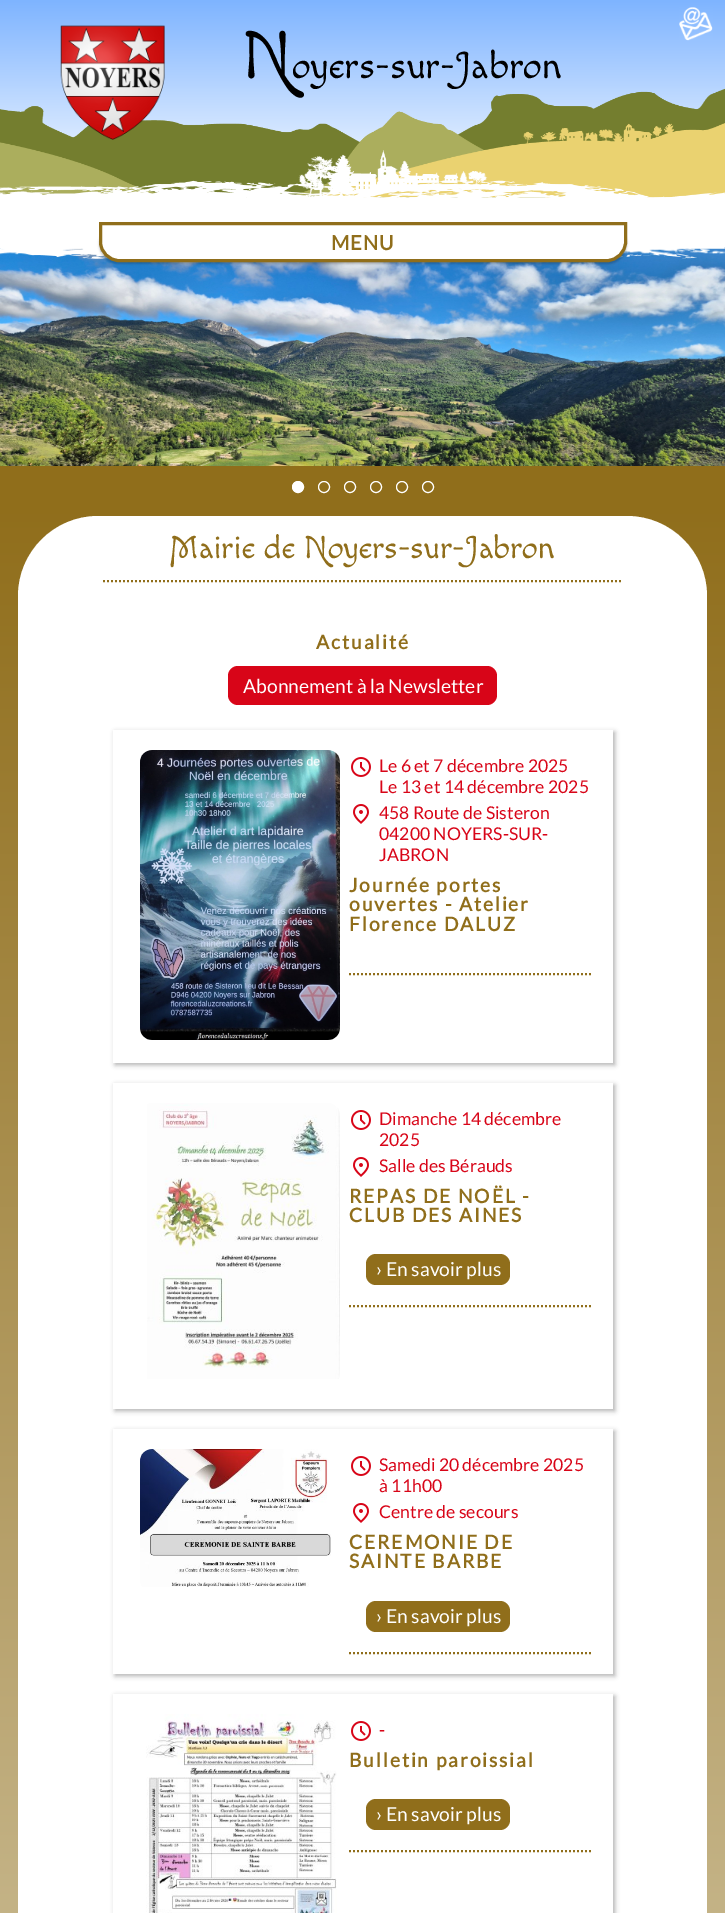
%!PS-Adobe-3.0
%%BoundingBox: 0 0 725 1913
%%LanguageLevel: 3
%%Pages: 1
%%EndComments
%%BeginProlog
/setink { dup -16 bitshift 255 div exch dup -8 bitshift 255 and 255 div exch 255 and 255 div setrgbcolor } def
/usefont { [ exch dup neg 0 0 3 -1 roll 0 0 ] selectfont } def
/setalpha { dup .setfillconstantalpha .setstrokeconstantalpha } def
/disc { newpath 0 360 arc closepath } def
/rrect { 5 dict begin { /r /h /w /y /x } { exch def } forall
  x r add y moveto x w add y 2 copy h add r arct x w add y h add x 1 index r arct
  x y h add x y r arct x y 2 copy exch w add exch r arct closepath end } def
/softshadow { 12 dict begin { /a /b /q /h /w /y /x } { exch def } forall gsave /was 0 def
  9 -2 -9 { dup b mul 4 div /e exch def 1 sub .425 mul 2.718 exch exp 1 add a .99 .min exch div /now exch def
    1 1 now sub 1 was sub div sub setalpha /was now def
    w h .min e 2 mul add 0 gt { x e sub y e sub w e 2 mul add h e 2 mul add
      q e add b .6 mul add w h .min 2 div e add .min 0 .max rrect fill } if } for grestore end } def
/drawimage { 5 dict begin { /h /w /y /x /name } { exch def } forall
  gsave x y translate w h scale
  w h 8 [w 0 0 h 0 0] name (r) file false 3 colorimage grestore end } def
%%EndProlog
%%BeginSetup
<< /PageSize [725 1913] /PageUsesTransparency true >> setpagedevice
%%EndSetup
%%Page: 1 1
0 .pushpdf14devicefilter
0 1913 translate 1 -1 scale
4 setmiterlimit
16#FFFFFF setink
0 0 725 1913 rectfill
gsave 0 0 moveto 725 0 lineto 725 196 lineto 0 196 lineto closepath clip newpath
<< /ShadingType 2 /ColorSpace /DeviceRGB /Coords [363 0 363 200] /Extend [true true] /Function << /FunctionType 2 /Domain [0 1] /C0 [0.494 0.706 1] /C1 [1 1 1] /N 1 >> >> shfill grestore
(img1.raw) 679 7 34 34 drawimage
(img3.raw) 0 88 725 110 drawimage
(img2.raw) 60 25 105 115 drawimage
/MacondoSwashCaps-Regular 68 usefont
16#000000 setink
242 78 moveto (N) show
/MacondoSwashCaps-Regular 38 usefont
292 78 moveto (oyers-sur-Jabron) show
(img4.raw) 0 247 725 219 drawimage
(img5.raw) 0 247 725 12 drawimage
99 224 528 40 20 1 0.2 softshadow
16#FFFFFF setink
100.5 223.5 moveto 625.5 223.5 lineto 625.5 242 lineto 625.5 252 617 260.5 607 260.5 curveto 119 260.5 lineto 109 260.5 100.5 252 100.5 242 curveto closepath gsave fill grestore
16#906E1B setink
3 setlinewidth
stroke
/Lato-Bold 20 usefont
331 250 moveto 1 0 (MENU) ashow
0 466 725 35 rectfill
16#FFFFFF setink
298 487 5.5 disc gsave fill grestore
1 setlinewidth
stroke
324 487 5.5 disc stroke
350 487 5.5 disc stroke
376 487 5.5 disc stroke
402 487 5.5 disc stroke
428 487 5.5 disc stroke
gsave 0 501 moveto 725 501 lineto 725 1913 lineto 0 1913 lineto closepath clip newpath
<< /ShadingType 2 /ColorSpace /DeviceRGB /Coords [362 501 363 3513] /Extend [true true] /Function << /FunctionType 3 /Domain [0 1] /Functions [<< /FunctionType 2 /Domain [0 1] /C0 [0.565 0.431 0.106] /C1 [0.784 0.718 0.553] /N 1 >> << /FunctionType 2 /Domain [0 1] /C0 [0.784 0.718 0.553] /C1 [0.565 0.431 0.106] /N 1 >>] /Bounds [0.5] /Encode [0 1 0 1] >> >> shfill grestore
98 516 moveto 627 516 lineto 671 516 707 552 707 596 curveto 707 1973 lineto 707 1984 698 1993 687 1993 curveto 38 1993 lineto 27 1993 18 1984 18 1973 curveto 18 596 lineto 18 552 54 516 98 516 curveto closepath fill
16#906E1B setink
2 setlinewidth
[2 2] 0 setdash
103 581 moveto 623 581 lineto stroke
/MacondoSwashCaps-Regular 32 usefont
170 558 moveto (Mairie de Noyers-sur-Jabron) show
/Lato-Bold 19.25 usefont
316 649 moveto 1.9 0 (Actualité) ashow
16#D80518 setink
228 666 269 39 10 rrect fill
/Lato-Regular 19.25 usefont
16#FFFFFF setink
243 693 moveto (Abonnement à la Newsletter) show
gsave
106 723 moveto 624 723 lineto 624 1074 lineto 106 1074 lineto closepath 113 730 moveto 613 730 lineto 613 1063 lineto 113 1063 lineto closepath eoclip newpath
16#000000 setink
115 732 500 333 0 2.5 0.3 softshadow
grestore
(img6.raw) 140 750 200 290 drawimage
16#906E1B setink
349 974 moveto 592 974 lineto stroke
(img7.raw) 351 757 20 20 drawimage
/Lato-Regular 17.6 usefont
16#D80518 setink
379 772 moveto (Le 6 et 7 décembre 2025) show
379 793 moveto (Le 13 et 14 décembre 2025) show
(img8.raw) 353 804 16 20 drawimage
[
    [(458 Route de Sisteron) 379 819]
    [(04200 NOYERS-SUR-) 379 840]
    [(JABRON) 379 861]
] { aload pop moveto show } forall
/Lato-Bold 19.25 usefont
16#906E1B setink
349 892 moveto 1.9 0 (Journée portes) ashow
349 911 moveto 1.9 0 (ouvertes - Atelier) ashow
349 931 moveto 1.9 0 (Florence DALUZ) ashow
gsave
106 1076 moveto 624 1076 lineto 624 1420 lineto 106 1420 lineto closepath 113 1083 moveto 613 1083 lineto 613 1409 lineto 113 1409 lineto closepath eoclip newpath
16#000000 setink
115 1085 500 326 0 2.5 0.3 softshadow
grestore
(img9.raw) 147 1103 193 276 drawimage
349 1306 moveto 592 1306 lineto stroke
(img7.raw) 351 1110 20 20 drawimage
/Lato-Regular 17.6 usefont
16#D80518 setink
379 1125 moveto (Dimanche 14 décembre) show
379 1146 moveto (2025) show
(img8.raw) 353 1157 16 20 drawimage
379 1172 moveto (Salle des Bérauds) show
/Lato-Bold 19.25 usefont
16#906E1B setink
349 1203 moveto 1.9 0 (REPAS DE NOËL -) ashow
349 1222 moveto 1.9 0 (CLUB DES AINES) ashow
366 1254 144 31 10 rrect fill
/Lato-Regular 19.25 usefont
16#FFFFFF setink
376 1276 moveto (› En savoir plus) show
gsave
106 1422 moveto 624 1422 lineto 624 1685 lineto 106 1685 lineto closepath 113 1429 moveto 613 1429 lineto 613 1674 lineto 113 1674 lineto closepath eoclip newpath
16#000000 setink
115 1431 500 245 0 2.5 0.3 softshadow
grestore
(img10.raw) 140 1449 191 138 drawimage
16#906E1B setink
349 1653 moveto 592 1653 lineto stroke
(img7.raw) 351 1456 20 20 drawimage
/Lato-Regular 17.6 usefont
16#D80518 setink
379 1471 moveto (Samedi 20 décembre 2025) show
379 1492 moveto (à 11h00) show
(img8.raw) 353 1503 16 20 drawimage
379 1518 moveto (Centre de secours) show
/Lato-Bold 19.25 usefont
16#906E1B setink
349 1549 moveto 1.9 0 (CEREMONIE DE) ashow
349 1568 moveto 1.9 0 (SAINTE BARBE) ashow
366 1601 144 31 10 rrect fill
/Lato-Regular 19.25 usefont
16#FFFFFF setink
376 1623 moveto (› En savoir plus) show
gsave
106 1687 moveto 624 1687 lineto 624 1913 lineto 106 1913 lineto closepath 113 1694 moveto 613 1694 lineto 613 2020 lineto 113 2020 lineto closepath eoclip newpath
16#000000 setink
115 1696 500 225 0 2.5 0.3 softshadow
grestore
(img11.raw) 146 1714 191 199 drawimage
16#906E1B setink
349 1851 moveto 592 1851 lineto stroke
(img7.raw) 351 1721 20 20 drawimage
/Lato-Regular 17.6 usefont
16#D80518 setink
379 1736 moveto (-) show
/Lato-Bold 19.25 usefont
16#906E1B setink
349 1767 moveto 1.9 0 (Bulletin paroissial) ashow
366 1799 144 31 10 rrect fill
/Lato-Regular 19.25 usefont
16#FFFFFF setink
376 1821 moveto (› En savoir plus) show
.poppdf14devicefilter showpage
%%EOF
